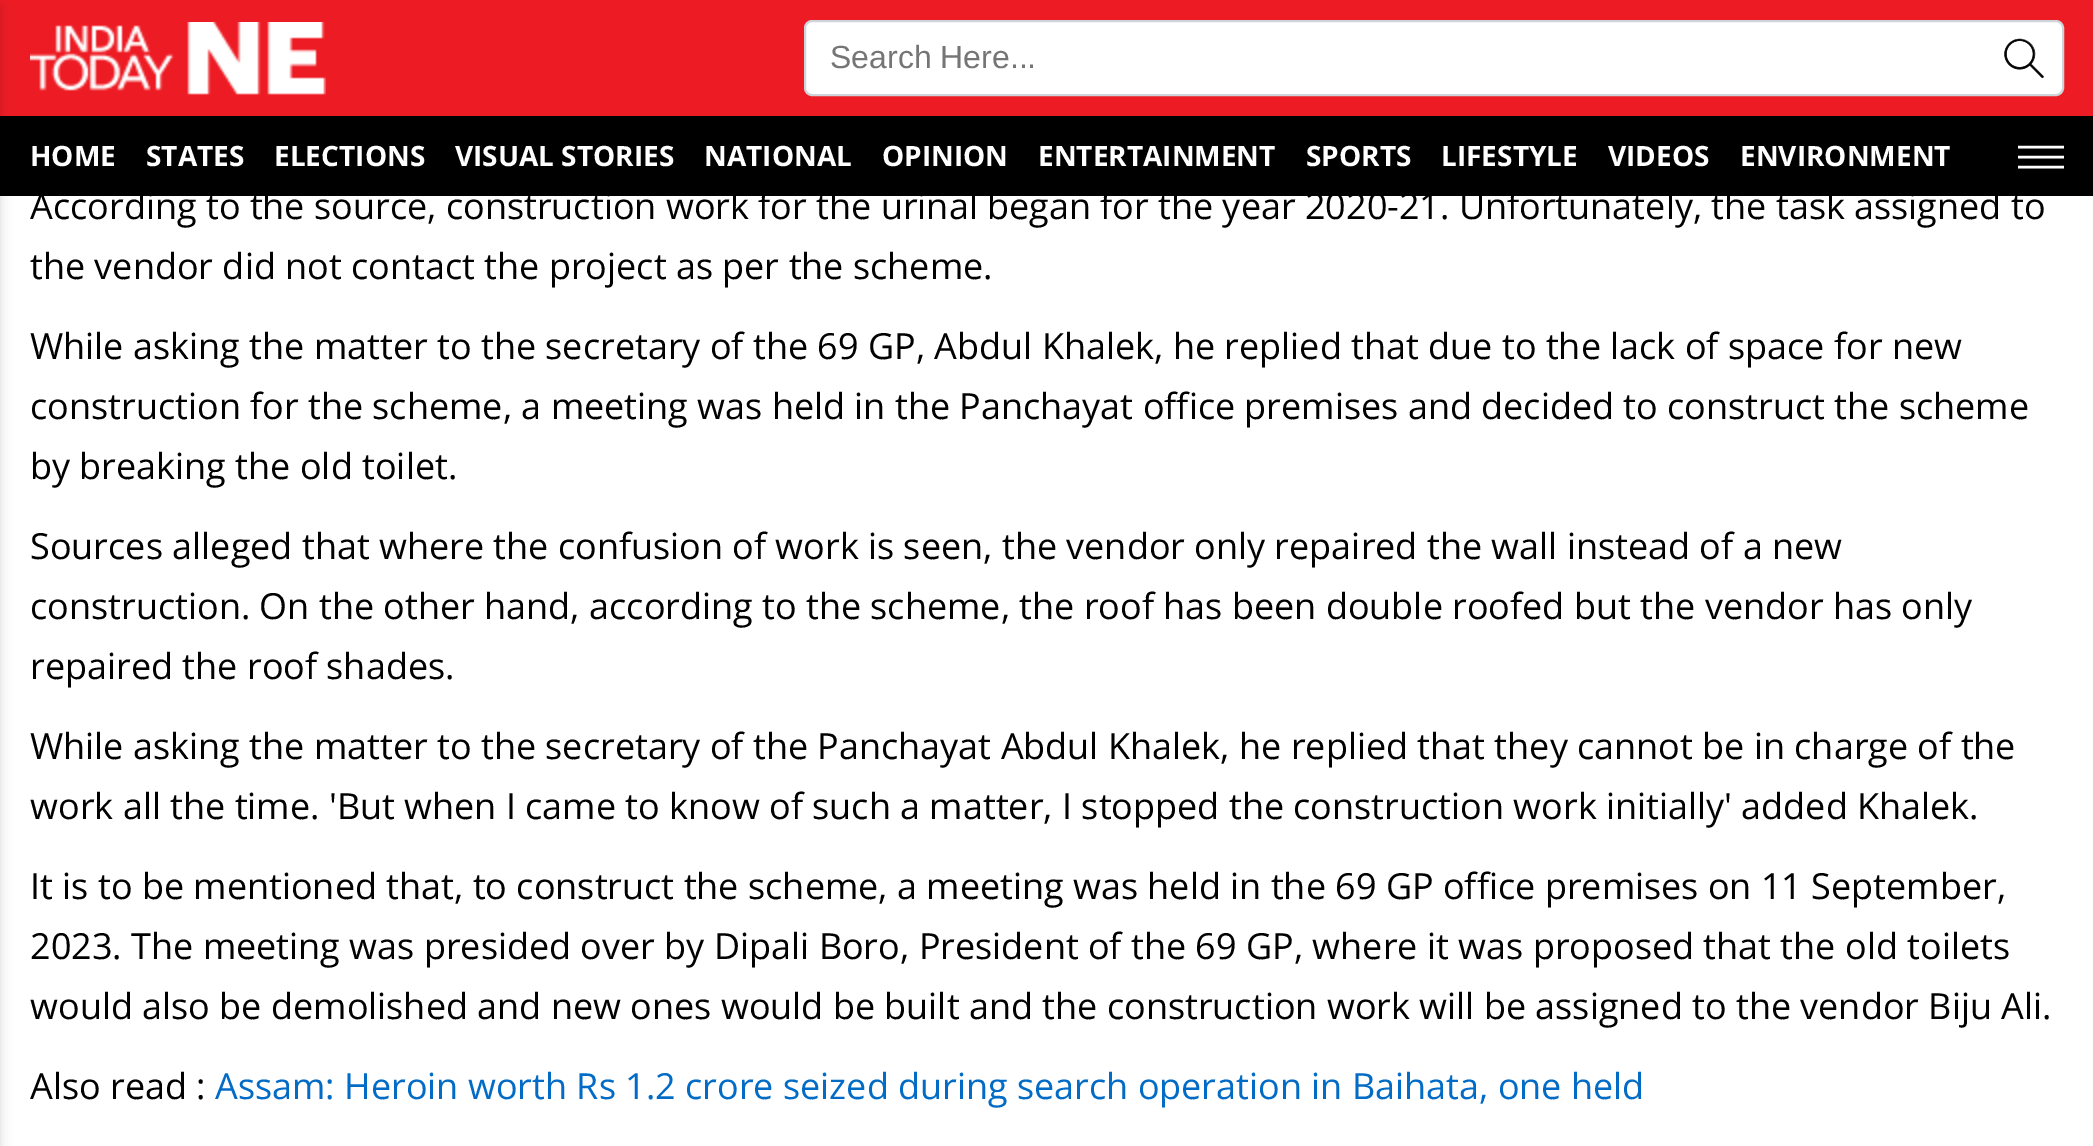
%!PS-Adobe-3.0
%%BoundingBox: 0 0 2093 1146
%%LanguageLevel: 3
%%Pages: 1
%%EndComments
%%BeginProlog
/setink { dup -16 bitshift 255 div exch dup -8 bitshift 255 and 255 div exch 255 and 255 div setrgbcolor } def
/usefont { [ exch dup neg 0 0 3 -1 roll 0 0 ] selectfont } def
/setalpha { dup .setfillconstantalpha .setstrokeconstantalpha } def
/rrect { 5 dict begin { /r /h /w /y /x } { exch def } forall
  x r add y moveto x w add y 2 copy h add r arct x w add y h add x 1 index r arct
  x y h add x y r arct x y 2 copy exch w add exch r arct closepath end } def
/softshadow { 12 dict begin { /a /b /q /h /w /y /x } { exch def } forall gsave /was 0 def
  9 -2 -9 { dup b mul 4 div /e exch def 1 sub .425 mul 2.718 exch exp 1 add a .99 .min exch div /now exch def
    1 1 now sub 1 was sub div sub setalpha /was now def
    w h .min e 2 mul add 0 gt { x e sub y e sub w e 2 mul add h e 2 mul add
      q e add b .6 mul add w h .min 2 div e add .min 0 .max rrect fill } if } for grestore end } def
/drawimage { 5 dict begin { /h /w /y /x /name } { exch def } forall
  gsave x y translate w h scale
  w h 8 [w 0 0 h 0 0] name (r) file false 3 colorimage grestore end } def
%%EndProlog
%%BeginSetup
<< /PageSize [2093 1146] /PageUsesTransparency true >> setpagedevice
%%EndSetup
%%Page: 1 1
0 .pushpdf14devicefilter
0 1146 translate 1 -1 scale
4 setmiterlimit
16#FFFFFF setink
0 0 2093 1146 rectfill
16#ED1C24 setink
0 0 2093 116 rectfill
16#000000 setink
0 116 2093 80 rectfill
-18 6 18 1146 0 6 0.16 softshadow
(img1.raw) 30 22 296 73 drawimage
16#FFFFFF setink
805 21 1258 74 7 rrect gsave fill grestore
16#CED4DA setink
2 setlinewidth
stroke
/LiberationSans-Regular 32 usefont
16#757575 setink
830 68 moveto (Search Here...) show
(img2.raw) 2004 38 40 40 drawimage
/OpenSans-Bold 28 usefont
16#FFFFFF setink
[
    [(HOME) 30 166]
    [(STATES) 146 166]
    [(ELECTIONS) 274 166]
    [(VISUAL STORIES) 455 166]
    [(NATIONAL) 704 166]
    [(OPINION) 882 166]
    [(ENTERTAINMENT) 1038 166]
    [(SPORTS) 1306 166]
    [(LIFESTYLE) 1441 166]
    [(VIDEOS) 1608 166]
    [(ENVIRONMENT) 1740 166]
] { aload pop moveto show } forall
2.6 setlinewidth
2018 147 moveto 2064 147 lineto 2018 157 moveto 2064 157 lineto 2018 167 moveto 2064 167 lineto stroke
/OpenSans-Regular 36 usefont
16#000000 setink
[
    [(According to the source, construction work for the urinal began for the year 2020-21. Unfortunately, the task assigned to) 30 219]
    [(the vendor did not contact the project as per the scheme.) 30 279]
    [(While asking the matter to the secretary of the 69 GP, Abdul Khalek, he replied that due to the lack of space for new) 30 359]
    [(construction for the scheme, a meeting was held in the Panchayat office premises and decided to construct the scheme) 30 419]
    [(by breaking the old toilet.) 30 479]
    [(Sources alleged that where the confusion of work is seen, the vendor only repaired the wall instead of a new) 30 559]
    [(construction. On the other hand, according to the scheme, the roof has been double roofed but the vendor has only) 30 619]
    [(repaired the roof shades.) 30 679]
    [(While asking the matter to the secretary of the Panchayat Abdul Khalek, he replied that they cannot be in charge of the) 30 759]
    [(work all the time. 'But when I came to know of such a matter, I stopped the construction work initially' added Khalek.) 30 819]
    [(It is to be mentioned that, to construct the scheme, a meeting was held in the 69 GP office premises on 11 September,) 30 899]
    [(2023. The meeting was presided over by Dipali Boro, President of the 69 GP, where it was proposed that the old toilets) 30 959]
    [(would also be demolished and new ones would be built and the construction work will be assigned to the vendor Biju Ali.) 30 1019]
    [(Also read :) 30 1099]
] { aload pop moveto show } forall
16#026BC5 setink
215 1099 moveto (Assam: Heroin worth Rs 1.2 crore seized during search operation in Baihata, one held) show
.poppdf14devicefilter showpage
%%EOF
